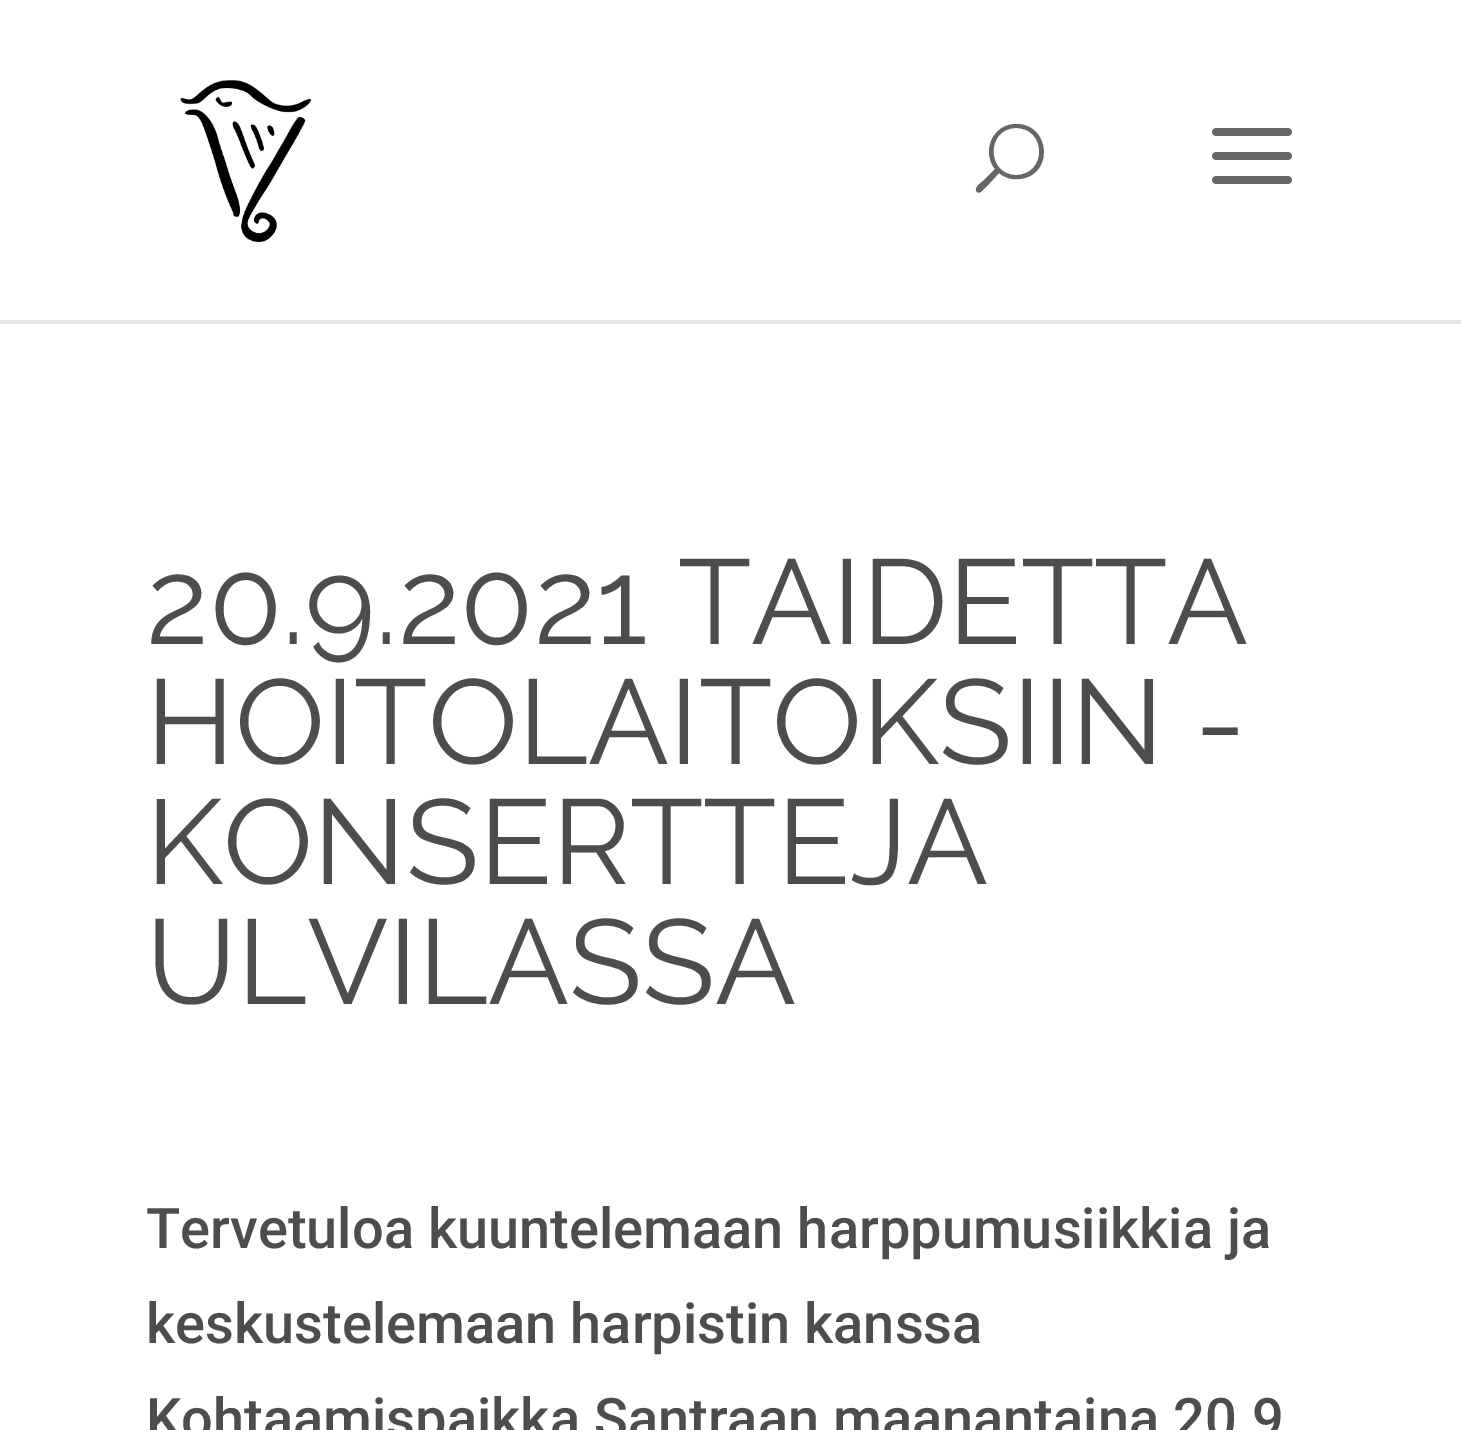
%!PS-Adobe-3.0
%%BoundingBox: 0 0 1461 1430
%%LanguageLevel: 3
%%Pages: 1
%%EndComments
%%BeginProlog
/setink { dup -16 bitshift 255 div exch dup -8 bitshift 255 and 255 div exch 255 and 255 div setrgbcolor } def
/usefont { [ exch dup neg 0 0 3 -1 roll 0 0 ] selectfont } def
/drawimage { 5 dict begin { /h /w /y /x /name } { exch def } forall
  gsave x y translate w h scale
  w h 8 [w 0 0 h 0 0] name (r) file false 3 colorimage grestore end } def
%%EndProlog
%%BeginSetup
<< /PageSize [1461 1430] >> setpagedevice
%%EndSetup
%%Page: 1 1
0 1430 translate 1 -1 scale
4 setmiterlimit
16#FFFFFF setink
0 0 1461 1430 rectfill
16#E6E6E6 setink
0 320 1461 4 rectfill
(img1.raw) 180 80 132 163 drawimage
16#666666 setink
1016 124 moveto 993 124 981 151 995 169 curveto 983 181 lineto 981 183 973 188 977 192 curveto 980 195 985 187 987 186 curveto 999 173 lineto 1005 178 1012 180 1019 179 curveto 1054 176 1051 124 1016 124 curveto closepath 1016 175 moveto 986 175 986 128 1016 128 curveto 1047 128 1047 175 1016 175 curveto closepath fill
(img2.raw) 1212 128 80 56 drawimage
/Raleway-Regular 120 usefont
16#4D4D4D setink
[
    [(20.9.2021 TAIDETTA) 146 644]
    [(HOITOLAITOKSIIN -) 146 764]
    [(KONSERTTEJA) 146 884]
    [(ULVILASSA) 146 1004]
] { aload pop moveto show } forall
/Roboto-Medium 56 usefont
[
    [(Tervetuloa kuuntelemaan harppumusiikkia ja) 146 1248]
    [(keskustelemaan harpistin kanssa) 146 1343]
    [(Kohtaamispaikka Santraan maanantaina 20.9) 146 1438]
] { aload pop moveto show } forall
showpage
%%EOF
